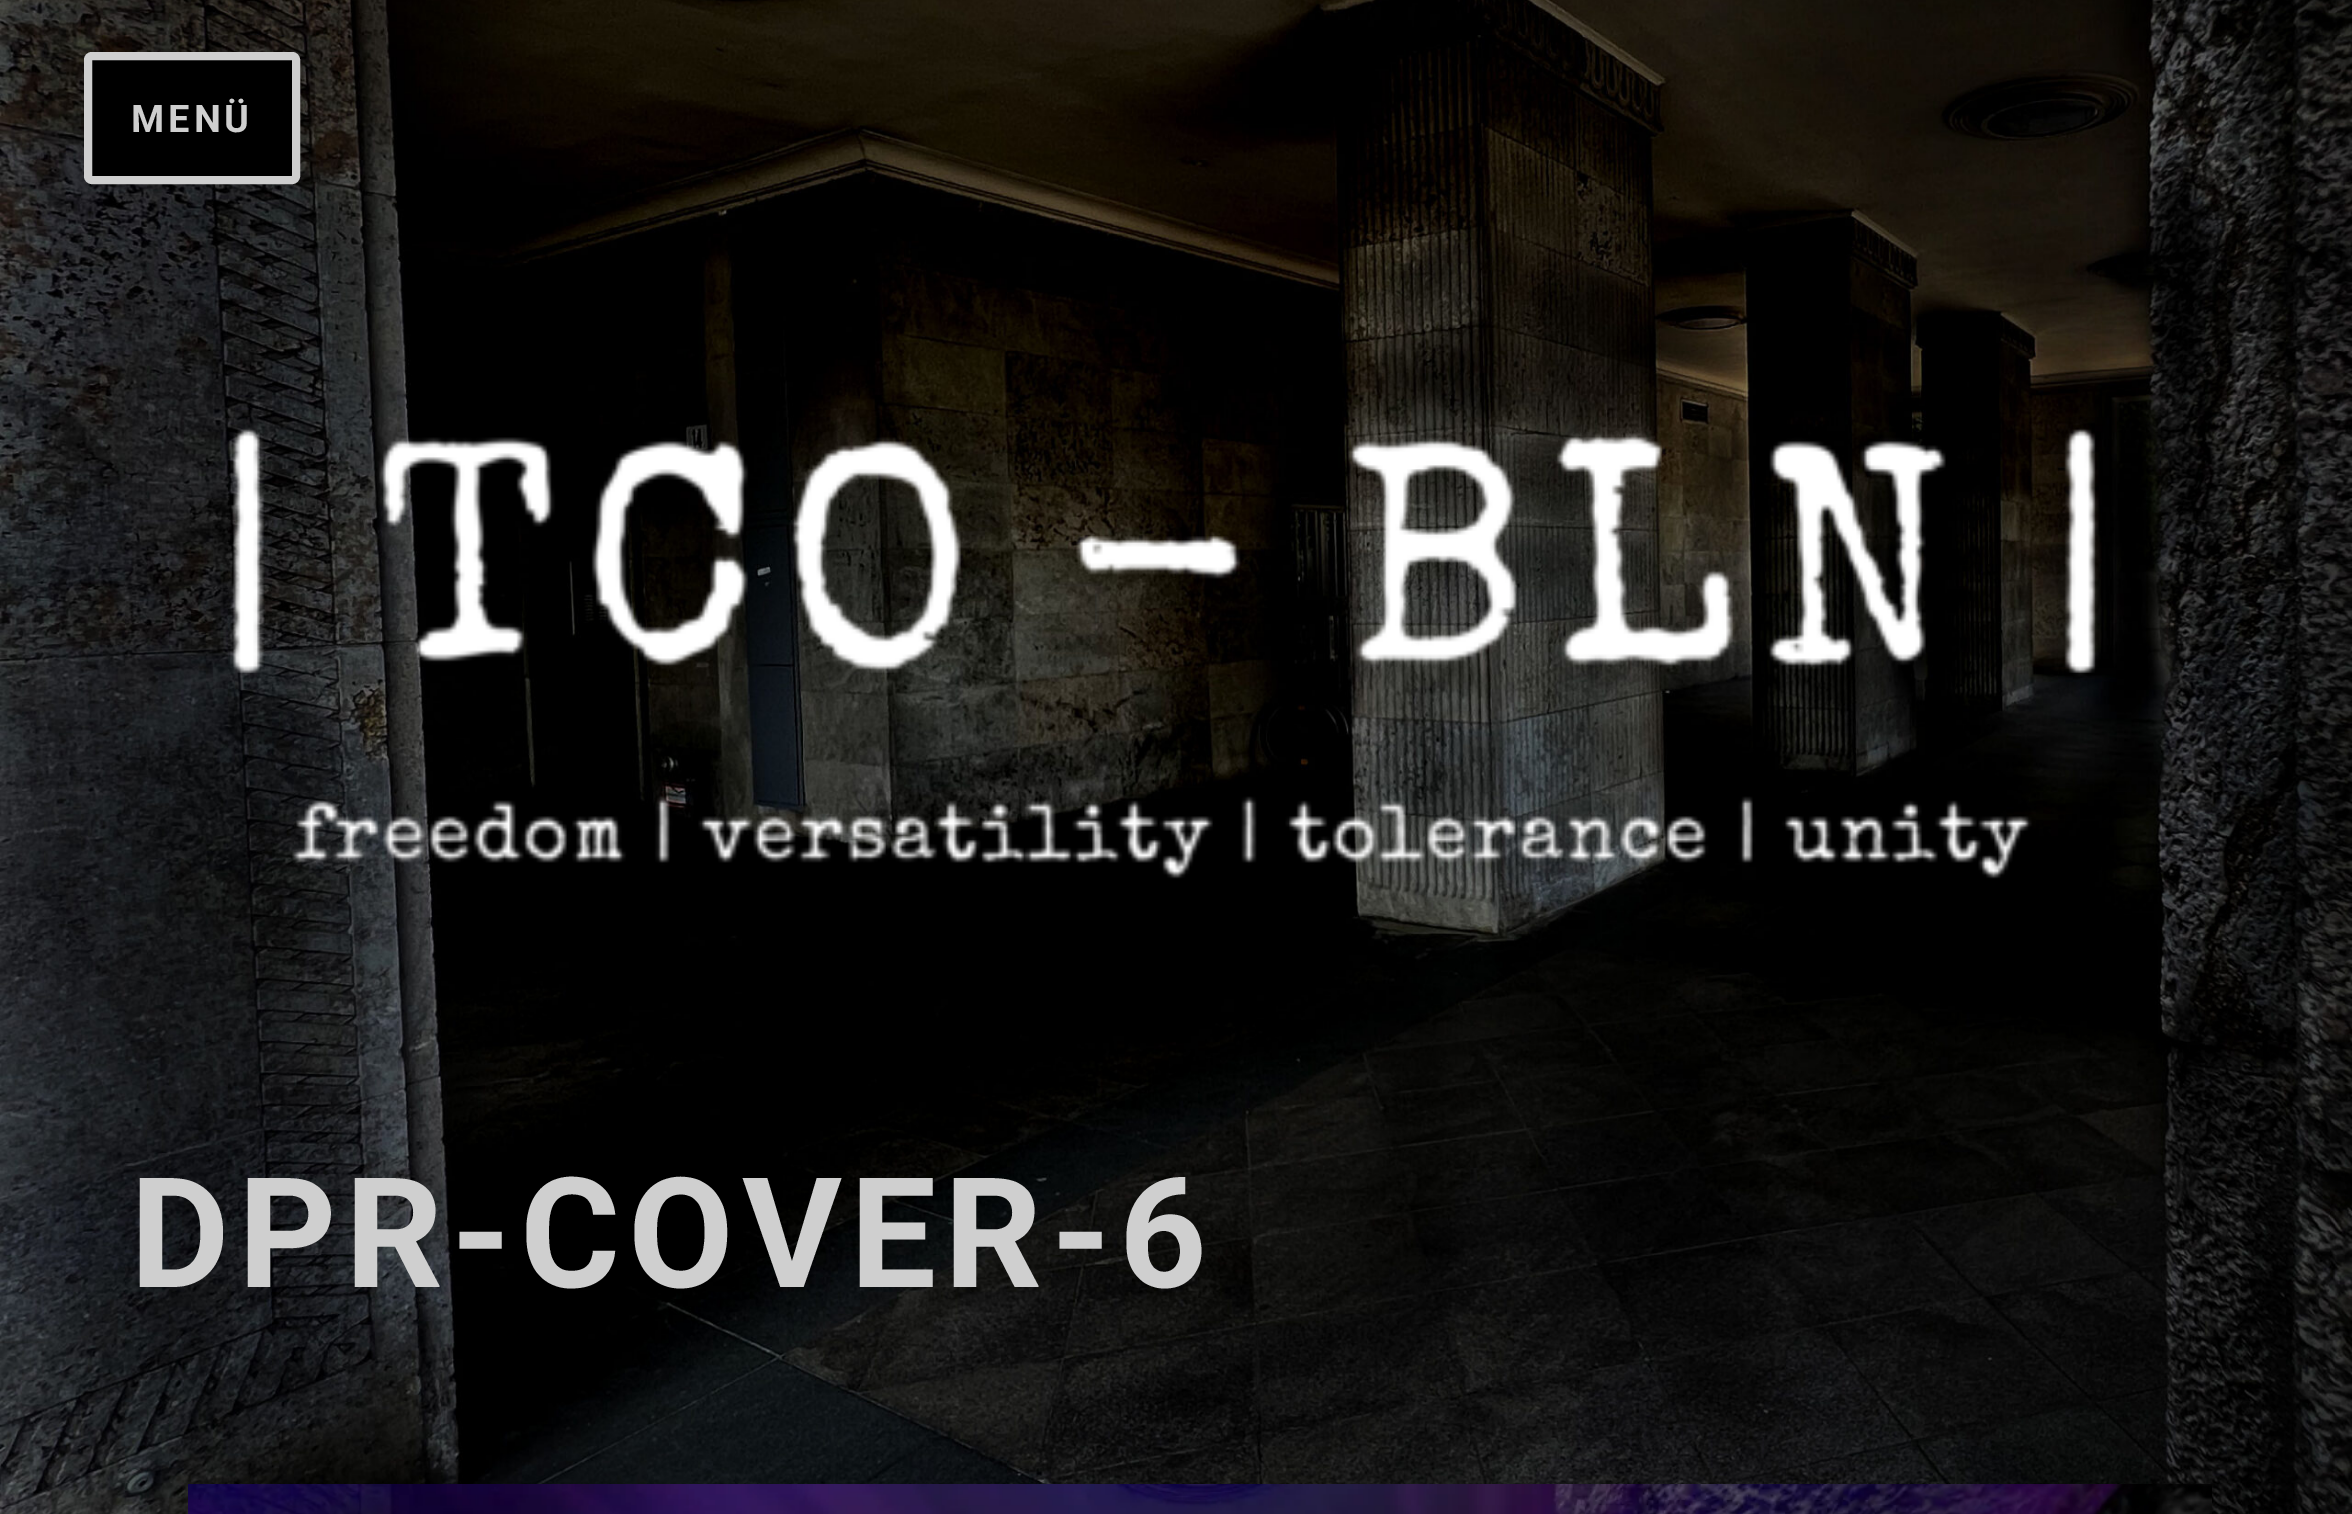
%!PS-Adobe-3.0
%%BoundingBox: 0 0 2352 1514
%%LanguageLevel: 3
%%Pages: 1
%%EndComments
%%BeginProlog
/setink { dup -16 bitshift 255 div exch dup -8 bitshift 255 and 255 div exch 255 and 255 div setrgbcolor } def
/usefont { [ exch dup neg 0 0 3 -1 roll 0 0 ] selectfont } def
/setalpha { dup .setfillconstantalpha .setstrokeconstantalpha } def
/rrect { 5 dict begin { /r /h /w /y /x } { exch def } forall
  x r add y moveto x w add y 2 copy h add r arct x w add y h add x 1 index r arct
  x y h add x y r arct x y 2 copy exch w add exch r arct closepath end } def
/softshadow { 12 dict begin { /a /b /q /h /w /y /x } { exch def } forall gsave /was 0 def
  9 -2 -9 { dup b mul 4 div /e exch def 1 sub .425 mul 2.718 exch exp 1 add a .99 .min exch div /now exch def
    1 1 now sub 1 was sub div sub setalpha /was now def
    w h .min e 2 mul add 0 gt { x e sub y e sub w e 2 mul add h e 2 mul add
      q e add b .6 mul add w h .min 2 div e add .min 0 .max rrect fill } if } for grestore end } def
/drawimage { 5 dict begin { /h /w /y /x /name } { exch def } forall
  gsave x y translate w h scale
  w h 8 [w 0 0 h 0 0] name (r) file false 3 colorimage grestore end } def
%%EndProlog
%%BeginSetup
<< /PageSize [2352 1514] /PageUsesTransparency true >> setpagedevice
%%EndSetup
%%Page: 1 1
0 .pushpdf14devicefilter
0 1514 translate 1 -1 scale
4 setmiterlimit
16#FFFFFF setink
0 0 2352 1514 rectfill
(img1.raw) 0 0 2352 1514 drawimage
16#000000 setink
84 56 216 132 8 4 0.2 softshadow
88 56 208 124 4 rrect gsave fill grestore
16#CFCFCF setink
8 setlinewidth
stroke
/Roboto-Bold 38 usefont
131 132 moveto 4 0 (MENÜ) ashow
(img2.raw) 230 428 1869 451 drawimage
/Roboto-Bold 153.5 usefont
130 1287 moveto 8 0 (DPR-COVER-6) ashow
(img3.raw) 188 1484 2024 30 drawimage
.poppdf14devicefilter showpage
%%EOF
